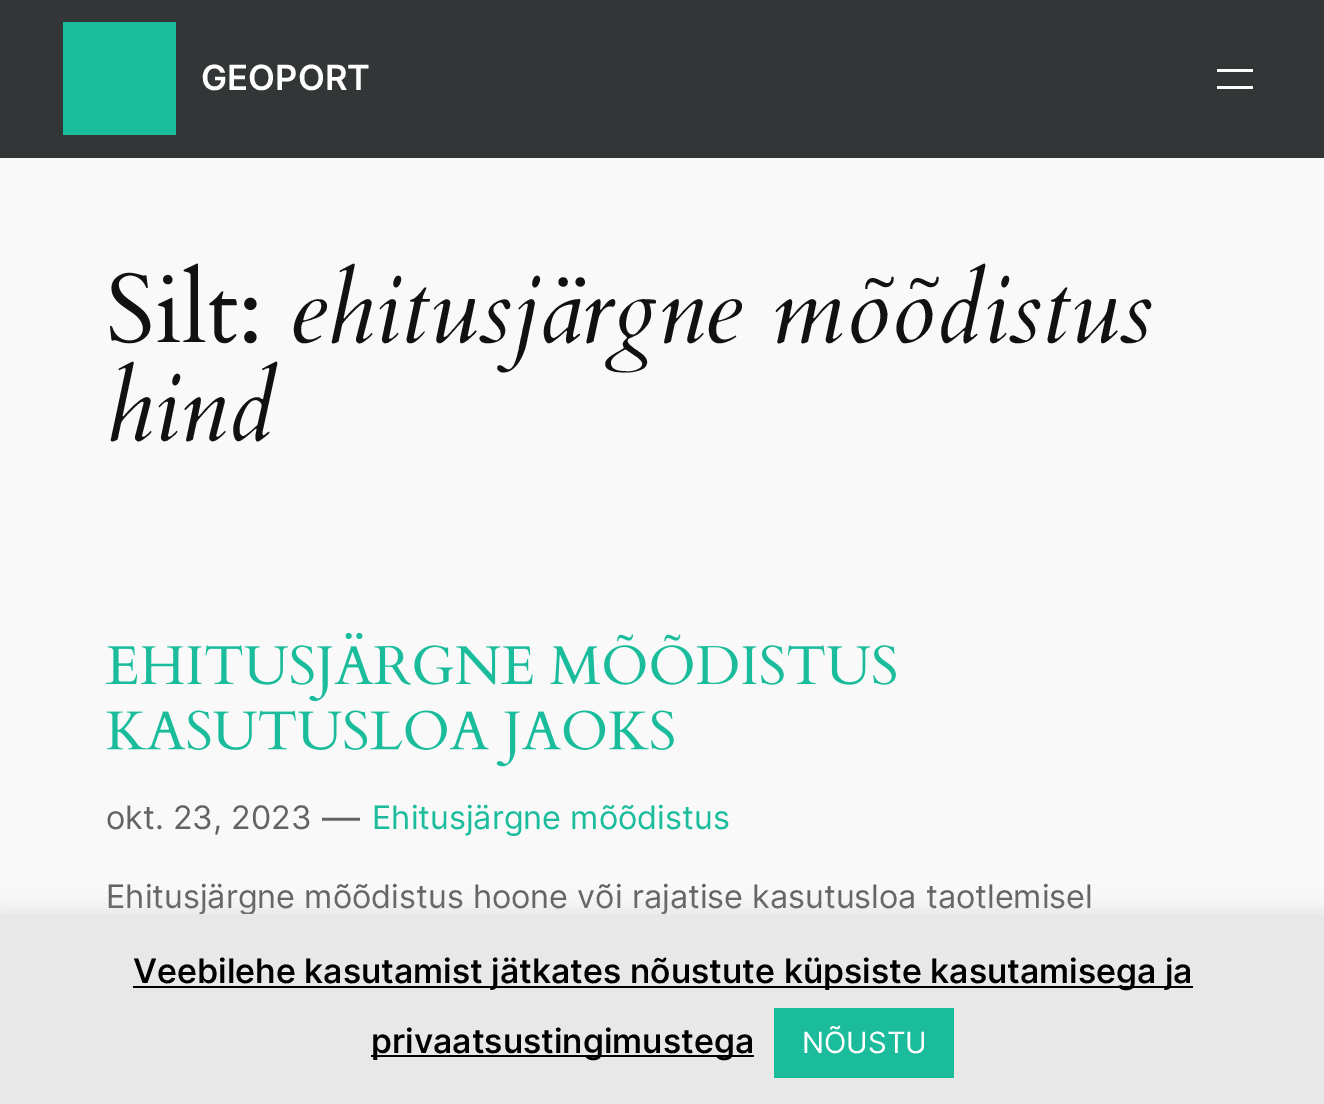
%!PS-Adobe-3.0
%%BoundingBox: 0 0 1324 1104
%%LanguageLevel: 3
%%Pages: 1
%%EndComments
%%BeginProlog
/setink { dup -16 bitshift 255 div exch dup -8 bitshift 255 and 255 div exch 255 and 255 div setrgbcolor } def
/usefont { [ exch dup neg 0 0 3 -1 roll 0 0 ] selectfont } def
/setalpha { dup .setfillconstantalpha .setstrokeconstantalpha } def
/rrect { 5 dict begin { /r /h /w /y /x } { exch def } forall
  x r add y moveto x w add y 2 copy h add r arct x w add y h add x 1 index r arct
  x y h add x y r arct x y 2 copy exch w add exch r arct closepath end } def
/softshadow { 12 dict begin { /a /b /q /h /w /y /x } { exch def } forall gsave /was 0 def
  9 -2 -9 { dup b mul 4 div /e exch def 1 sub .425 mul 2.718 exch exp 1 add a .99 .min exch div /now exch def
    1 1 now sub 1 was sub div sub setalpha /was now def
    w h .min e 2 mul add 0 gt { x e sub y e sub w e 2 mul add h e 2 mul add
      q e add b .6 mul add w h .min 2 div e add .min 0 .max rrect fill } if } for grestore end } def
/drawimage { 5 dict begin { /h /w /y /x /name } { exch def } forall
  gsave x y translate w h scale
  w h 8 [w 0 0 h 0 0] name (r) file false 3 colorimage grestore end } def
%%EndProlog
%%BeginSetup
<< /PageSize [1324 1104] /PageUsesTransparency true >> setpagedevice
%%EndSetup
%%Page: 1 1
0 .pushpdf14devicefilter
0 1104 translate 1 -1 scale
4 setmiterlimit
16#F9F9F9 setink
0 0 1324 1104 rectfill
16#333636 setink
0 0 1324 158 rectfill
16#1BBC9B setink
63 22 113 113 rectfill
/Inter-SemiBold 34.75 usefont
16#FFFFFF setink
201 90 moveto (GEOPORT) show
1217 69 36 3 rectfill
1217 86 36 3 rectfill
(img1.raw) 110 263 147 81 drawimage
/Cardo-Italic 97.75 usefont
16#111111 setink
289 342 moveto (ehitusjärgne mõõdistus) show
106 440 moveto (hind) show
(img2.raw) 105 632 791 70 drawimage
(img3.raw) 106 710 568 57 drawimage
/Inter-Regular 32.4 usefont
16#636363 setink
106 829 moveto (okt. 23, 2023) show
/Inter-Regular 38 usefont
322 831 moveto (—) show
/Inter-Regular 32.4 usefont
16#1ABC9C setink
372 829 moveto (Ehitusjärgne mõõdistus) show
16#636363 setink
106 908 moveto (Ehitusjärgne mõõdistus hoone või rajatise kasutusloa taotlemisel) show
16#ACABAB setink
0 911 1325 192 0 11 0.3 softshadow
16#E8E8E8 setink
0 914 1324 190 rectfill
16#000000 setink
133 986 1060 2 rectfill
/Inter-Medium 33.75 usefont
133 983 moveto (Veebilehe kasutamist jätkates nõustute küpsiste kasutamisega ja) show
371 1055 383 2 rectfill
371 1053 moveto (privaatsustingimustega) show
16#1ABC9C setink
774 1008 180 70 rectfill
/Inter-Regular 29.25 usefont
16#FFFFFF setink
802 1053 moveto (NÕUSTU) show
.poppdf14devicefilter showpage
%%EOF
